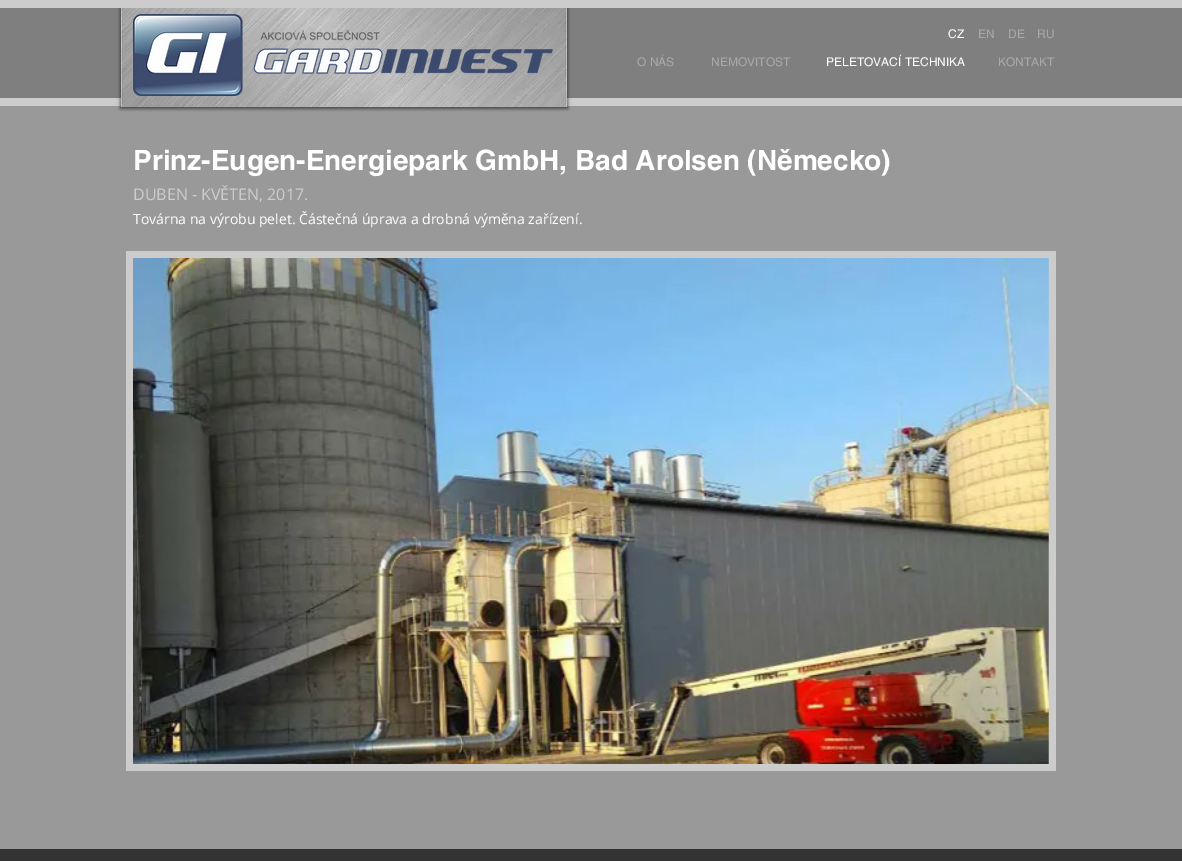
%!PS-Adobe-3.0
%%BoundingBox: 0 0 1182 861
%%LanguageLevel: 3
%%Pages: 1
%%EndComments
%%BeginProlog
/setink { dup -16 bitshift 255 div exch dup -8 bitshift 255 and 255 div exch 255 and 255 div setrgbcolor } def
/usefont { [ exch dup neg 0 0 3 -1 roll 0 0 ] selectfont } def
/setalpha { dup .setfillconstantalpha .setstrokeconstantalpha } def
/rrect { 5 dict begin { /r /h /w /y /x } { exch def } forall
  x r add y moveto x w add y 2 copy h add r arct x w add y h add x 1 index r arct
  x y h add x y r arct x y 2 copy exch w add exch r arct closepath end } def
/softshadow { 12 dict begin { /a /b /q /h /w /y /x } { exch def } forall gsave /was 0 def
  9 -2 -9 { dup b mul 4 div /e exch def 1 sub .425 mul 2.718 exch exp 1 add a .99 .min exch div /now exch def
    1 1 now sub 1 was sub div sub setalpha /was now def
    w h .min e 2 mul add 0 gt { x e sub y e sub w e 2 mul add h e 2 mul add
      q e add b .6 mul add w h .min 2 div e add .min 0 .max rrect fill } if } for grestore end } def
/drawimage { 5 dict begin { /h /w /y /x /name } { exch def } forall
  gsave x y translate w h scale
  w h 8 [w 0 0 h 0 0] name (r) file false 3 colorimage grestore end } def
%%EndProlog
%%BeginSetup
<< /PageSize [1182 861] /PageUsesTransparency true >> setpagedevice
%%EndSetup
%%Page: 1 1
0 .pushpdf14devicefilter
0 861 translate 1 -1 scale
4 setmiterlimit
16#999999 setink
0 0 1182 861 rectfill
16#7F7F7F setink
0 8 1182 90 rectfill
16#CCCCCC setink
0 98 1182 8 rectfill
16#000000 setink
120 0 448 109 0 1.5 0.5 softshadow
16#CCCCCC setink
0 0 1182 8 rectfill
(img1.raw) 121 8 446 99 drawimage
(img2.raw) 133 14 420 82 drawimage
/helvetica-Regular 12 usefont
16#FFFFFF setink
948 38 moveto (CZ) show
16#A9A9A9 setink
[
    [(EN) 978 38]
    [(DE) 1008 38]
    [(RU) 1037 38]
    [(O NÁS) 637 66]
    [(NEMOVITOST) 711 66]
] { aload pop moveto show } forall
16#FFFFFF setink
826 66 moveto (PELETOVACÍ TECHNIKA) show
16#A9A9A9 setink
998 66 moveto (KONTAKT) show
/helvetica-Bold 28 usefont
16#FFFFFF setink
133 170 moveto (Prinz-Eugen-Energiepark GmbH, Bad Arolsen \(Německo\)) show
/OpenSans-Regular 16 usefont
16#CCCCCC setink
133 200 moveto (DUBEN - KVĚTEN, 2017.) show
/OpenSans-Regular 14 usefont
16#FFFFFF setink
133 224 moveto (Továrna na výrobu pelet. Částečná úprava a drobná výměna zařízení.) show
16#CCCCCC setink
126 251 930 520 rectfill
(img3.raw) 133 258 916 506 drawimage
/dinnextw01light-Light 17 usefont
16#443D2F setink
154 745 moveto (1) show
16#333333 setink
0 849 1182 12 rectfill
.poppdf14devicefilter showpage
%%EOF
